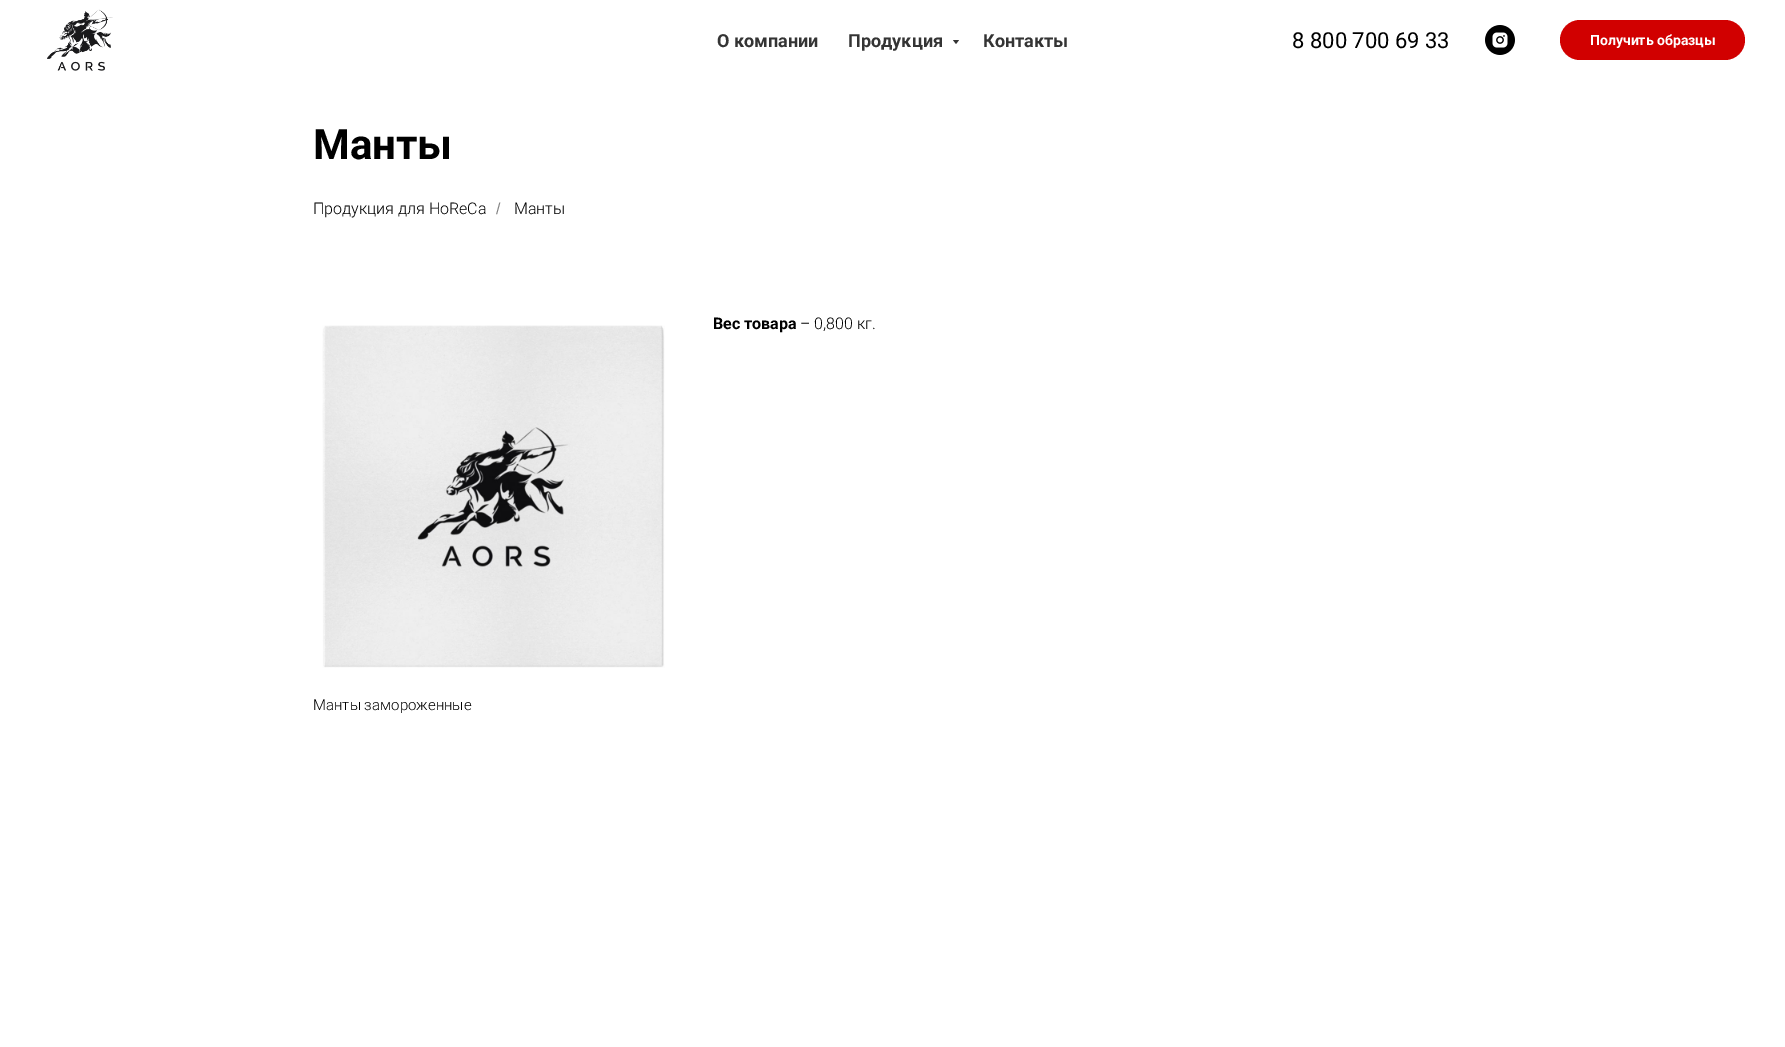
%!PS-Adobe-3.0
%%BoundingBox: 0 0 1785 1047
%%LanguageLevel: 3
%%Pages: 1
%%EndComments
%%BeginProlog
/setink { dup -16 bitshift 255 div exch dup -8 bitshift 255 and 255 div exch 255 and 255 div setrgbcolor } def
/usefont { [ exch dup neg 0 0 3 -1 roll 0 0 ] selectfont } def
/rrect { 5 dict begin { /r /h /w /y /x } { exch def } forall
  x r add y moveto x w add y 2 copy h add r arct x w add y h add x 1 index r arct
  x y h add x y r arct x y 2 copy exch w add exch r arct closepath end } def
/drawimage { 5 dict begin { /h /w /y /x /name } { exch def } forall
  gsave x y translate w h scale
  w h 8 [w 0 0 h 0 0] name (r) file false 3 colorimage grestore end } def
%%EndProlog
%%BeginSetup
<< /PageSize [1785 1047] >> setpagedevice
%%EndSetup
%%Page: 1 1
0 1047 translate 1 -1 scale
4 setmiterlimit
16#FFFFFF setink
0 0 1785 1047 rectfill
(img1.raw) 47 9 66 62 drawimage
/Roboto-Bold 18 usefont
16#343434 setink
717 47 moveto (О компании) show
848 47 moveto (Продукция) show
953 40 moveto 959 40 lineto 956 44 lineto closepath fill
983 47 moveto (Контакты) show
/Roboto-Regular 22 usefont
16#000000 setink
1292 48 moveto (8 800 700 69 33) show
(img2.raw) 1485 25 30 30 drawimage
16#D10000 setink
1560 20 185 40 20 rrect fill
/Roboto-Bold 14 usefont
16#FFFFFF setink
1590 45 moveto (Получить образцы) show
/Roboto-Bold 42 usefont
16#000000 setink
313 159 moveto (Манты) show
/Roboto-Light 16 usefont
313 214 moveto (Продукция для HoReCa) show
/LiberationSans-Regular 16 usefont
16#858585 setink
496 214 moveto (/) show
/Roboto-Light 16 usefont
16#000000 setink
514 214 moveto (Манты) show
/Roboto-Bold 16 usefont
713 329 moveto (Вес товара) show
/Roboto-Light 16 usefont
800 329 moveto (– 0,800 кг.) show
(img3.raw) 322 325 343 343 drawimage
/Roboto-Light 15 usefont
313 710 moveto (Манты замороженные) show
showpage
%%EOF
